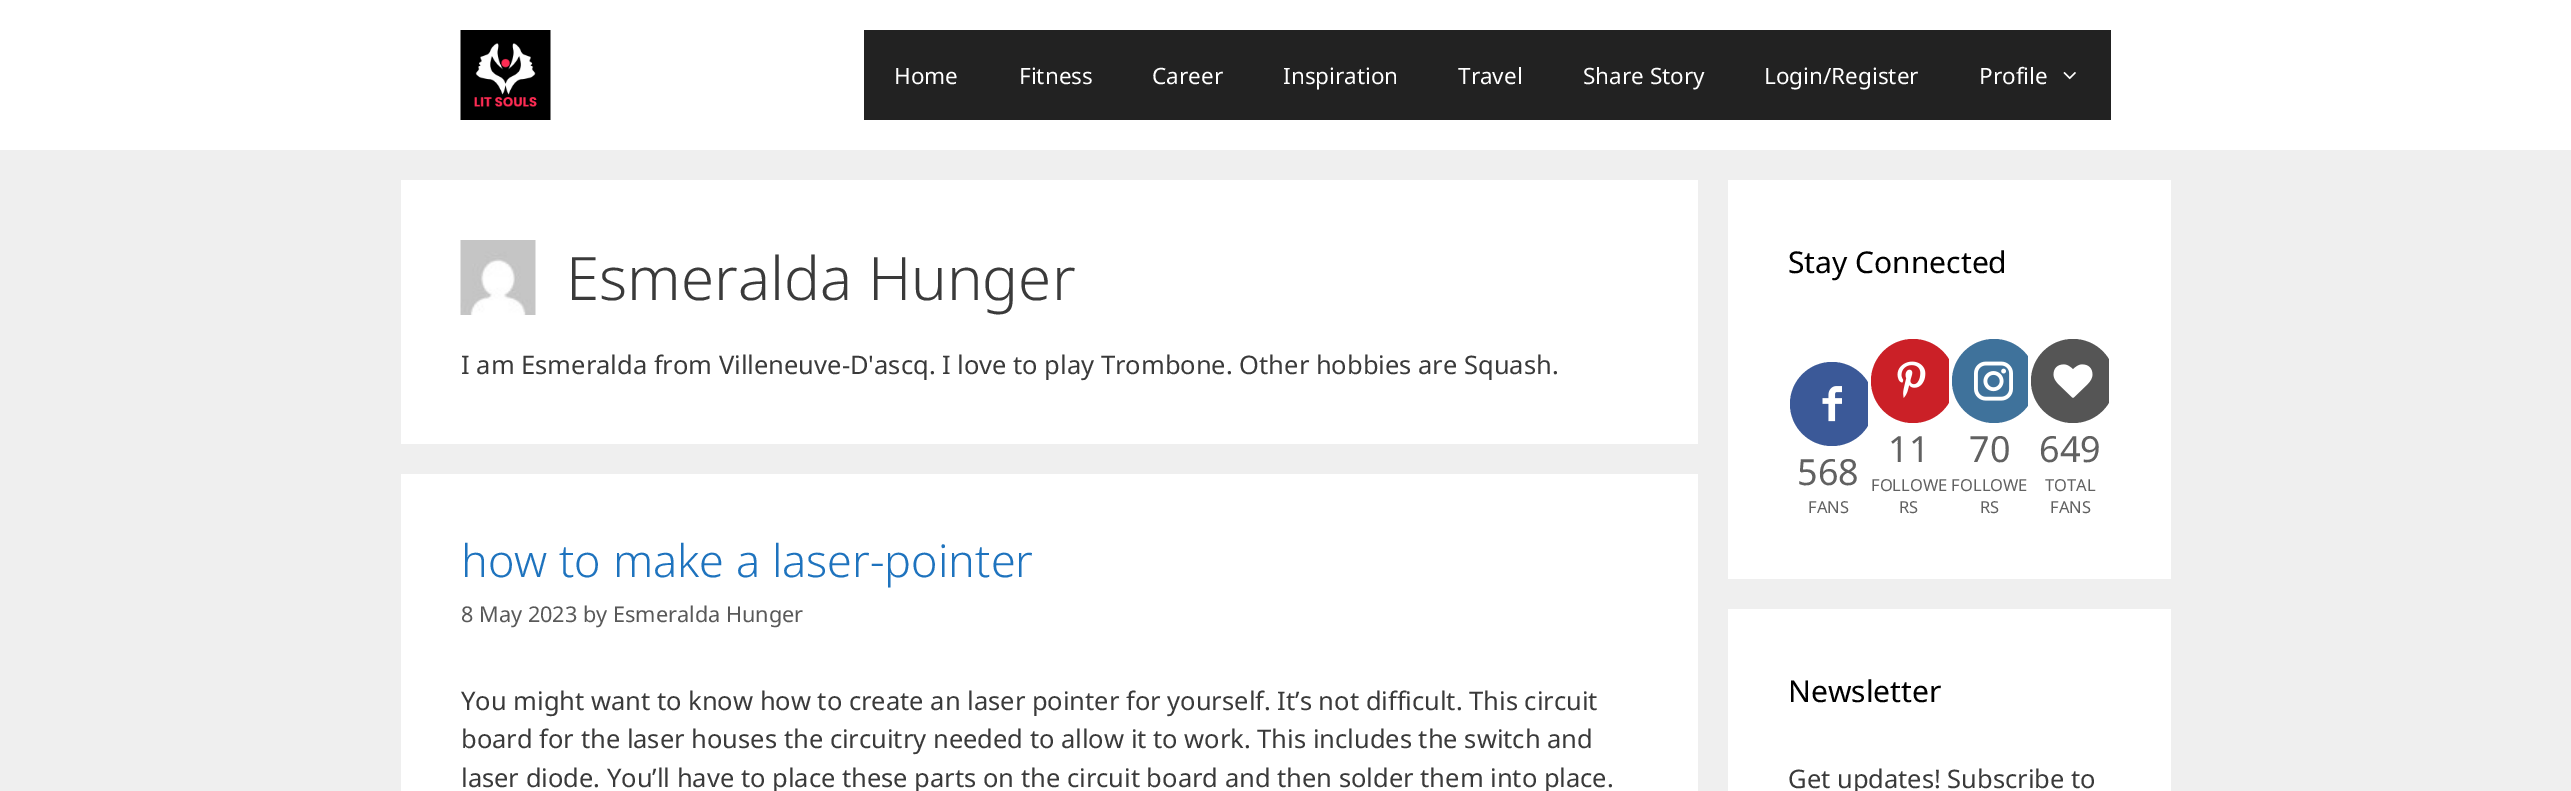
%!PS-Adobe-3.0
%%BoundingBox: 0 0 2571 791
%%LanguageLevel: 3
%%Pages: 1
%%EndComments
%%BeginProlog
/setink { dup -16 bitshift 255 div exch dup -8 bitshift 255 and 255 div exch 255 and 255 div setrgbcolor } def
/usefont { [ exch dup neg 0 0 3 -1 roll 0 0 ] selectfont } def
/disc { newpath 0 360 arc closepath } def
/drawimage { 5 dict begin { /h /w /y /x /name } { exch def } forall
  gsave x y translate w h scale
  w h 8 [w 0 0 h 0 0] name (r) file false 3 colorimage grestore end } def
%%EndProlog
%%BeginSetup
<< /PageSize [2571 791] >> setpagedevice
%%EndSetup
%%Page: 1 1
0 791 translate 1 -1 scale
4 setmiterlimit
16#EFEFEF setink
0 0 2571 791 rectfill
16#FFFFFF setink
0 0 2571 150 rectfill
(img1.raw) 460 30 91 90 drawimage
16#222222 setink
864 30 1247 90 rectfill
/NotoSans-Regular 22.5 usefont
16#FFFFFF setink
[
    [(Home) 894 84]
    [(Fitness) 1019 84]
    [(Career) 1152 84]
    [(Inspiration) 1283 84]
    [(Travel) 1458 84]
    [(Share Story) 1583 84]
    [(Login/Register) 1764 84]
    [(Profile) 1979 84]
] { aload pop moveto show } forall
(img2.raw) 2063 72 13 8 drawimage
401 180 1297 264 rectfill
(img3.raw) 460 240 76 75 drawimage
/NotoSans-Light 60 usefont
16#3A3A3A setink
566 300 moveto (Esmeralda Hunger) show
/NotoSans-Regular 25.5 usefont
461 374 moveto (I am Esmeralda from Villeneuve-D'ascq. I love to play Trombone. Other hobbies are Squash.) show
16#FFFFFF setink
401 474 1297 317 rectfill
/NotoSans-Light 45 usefont
16#1E73BE setink
461 577 moveto (how to make a laser-pointer) show
/NotoSans-Regular 21.7 usefont
16#595959 setink
461 622 moveto (8 May 2023 by Esmeralda Hunger) show
/NotoSans-Regular 25.5 usefont
16#3A3A3A setink
[
    [(You might want to know how to create an laser pointer for yourself. It’s not difficult. This circuit) 461 710]
    [(board for the laser houses the circuitry needed to allow it to work. This includes the switch and) 461 748]
    [(laser diode. You’ll have to place these parts on the circuit board and then solder them into place.) 461 787]
] { aload pop moveto show } forall
16#FFFFFF setink
1728 180 443 399 rectfill
/NotoSans-Regular 30 usefont
16#000000 setink
1788 273 moveto (Stay Connected) show
gsave
1790 354 78 164 rectclip
16#3B5998 setink
1832 404 42 disc fill
grestore
gsave
1871 332 78 186 rectclip
16#CB2027 setink
1913 381 42 disc fill
grestore
gsave
1952 332 76 186 rectclip
16#3F729B setink
1994 381 42 disc fill
grestore
(img4.raw) 1974 361 39 40 drawimage
/NotoSans-Regular 36 usefont
16#616161 setink
1969 462 moveto (70) show
/NotoSans-Regular 16.5 usefont
1980 513 moveto (RS) show
gsave
2031 332 78 186 rectclip
16#555555 setink
2073 381 42 disc fill
grestore
(img5.raw) 2053 364 40 34 drawimage
/NotoSans-Regular 36 usefont
2039 462 moveto (649) show
/NotoSans-Regular 16.5 usefont
2045 491 moveto (TOTAL) show
2050 513 moveto (FANS) show
(img6.raw) 1822 386 20 36 drawimage
/NotoSans-Regular 36 usefont
1797 485 moveto (568) show
/NotoSans-Regular 16.5 usefont
1808 513 moveto (FANS) show
(img7.raw) 1897 361 29 37 drawimage
/NotoSans-Regular 36 usefont
1888 462 moveto (11) show
/NotoSans-Regular 16.5 usefont
1871 491 moveto (FOLLOWE FOLLOWE) show
1899 513 moveto (RS) show
16#FFFFFF setink
1728 609 443 182 rectfill
/NotoSans-Regular 30 usefont
16#000000 setink
1788 702 moveto (Newsletter) show
/NotoSans-Regular 25.5 usefont
16#3A3A3A setink
1788 788 moveto (Get updates! Subscribe to) show
showpage
%%EOF
